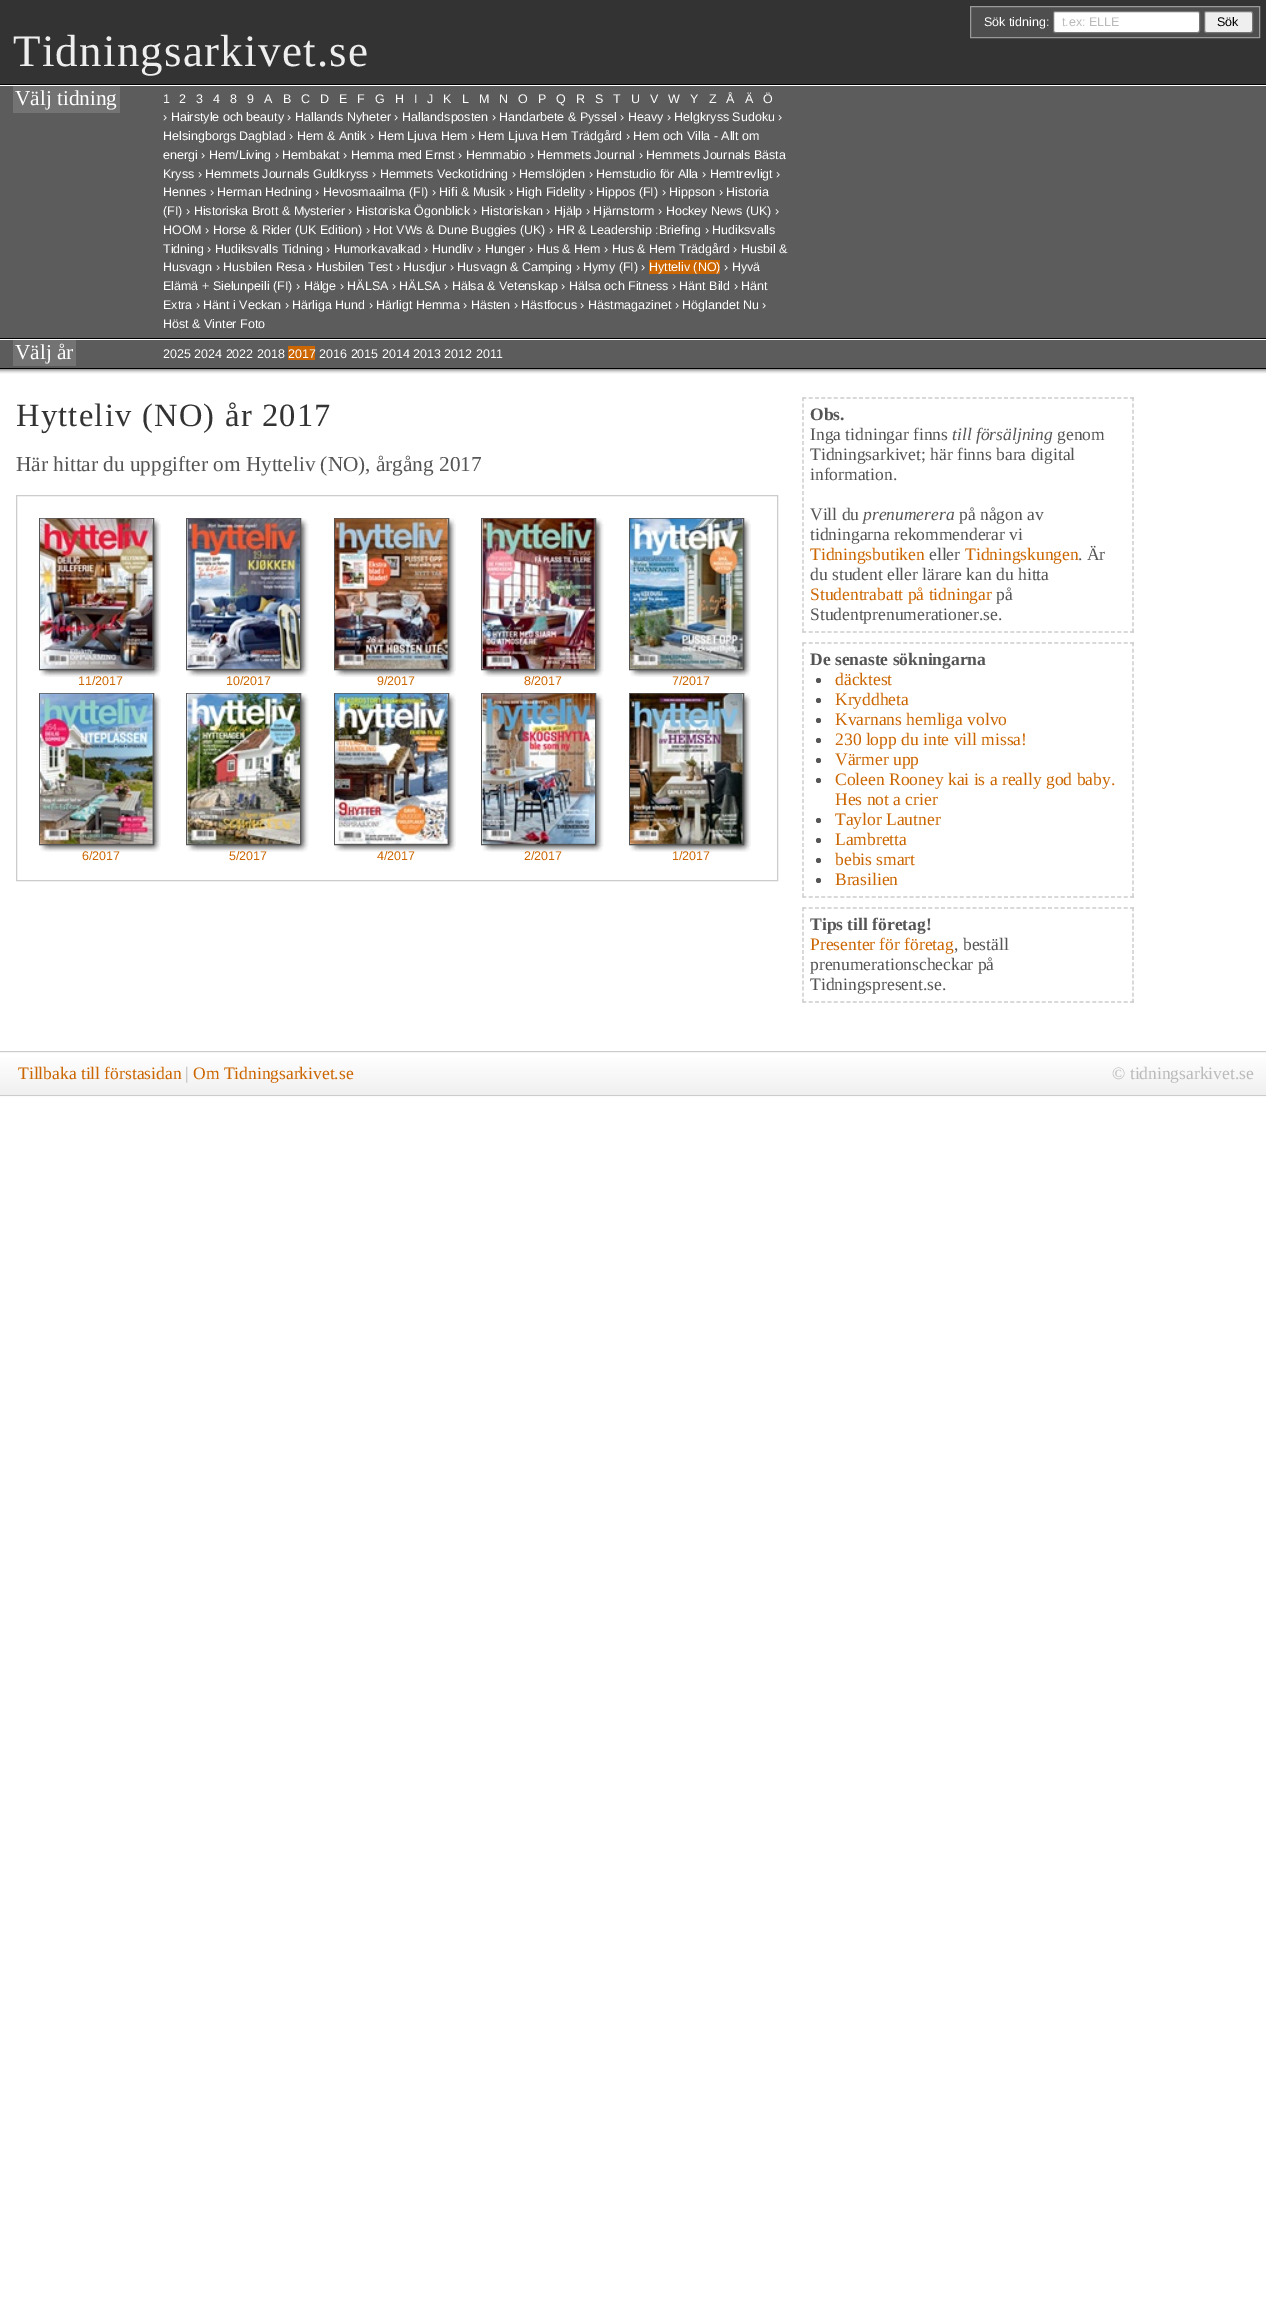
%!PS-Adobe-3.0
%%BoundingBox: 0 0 1266 2303
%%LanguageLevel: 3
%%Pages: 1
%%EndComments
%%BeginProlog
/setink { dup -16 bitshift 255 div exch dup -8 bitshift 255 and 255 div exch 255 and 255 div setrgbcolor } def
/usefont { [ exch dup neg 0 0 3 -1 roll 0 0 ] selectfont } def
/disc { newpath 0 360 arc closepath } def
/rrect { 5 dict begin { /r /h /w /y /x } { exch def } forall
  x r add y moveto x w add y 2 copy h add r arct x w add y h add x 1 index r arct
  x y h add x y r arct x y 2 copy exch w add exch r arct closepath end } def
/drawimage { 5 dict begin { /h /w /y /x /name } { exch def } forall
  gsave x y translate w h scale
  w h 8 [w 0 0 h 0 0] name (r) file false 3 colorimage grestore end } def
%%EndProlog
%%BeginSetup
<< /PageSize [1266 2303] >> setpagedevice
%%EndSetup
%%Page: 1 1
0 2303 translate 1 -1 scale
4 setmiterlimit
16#FFFFFF setink
0 0 1266 2303 rectfill
16#333333 setink
0 0 1266 84 rectfill
16#000000 setink
0 84 1266 1 rectfill
16#4E4E4E setink
970.5 6.5 moveto 1259.5 6.5 lineto 1259.5 37.5 lineto 970.5 37.5 lineto closepath gsave fill grestore
16#999999 setink
stroke
/LiberationSans-Regular 12.5 usefont
16#FFFFFF setink
984 26 moveto (Sök tidning:) show
1053.5 11.5 146 21 2 rrect gsave fill grestore
16#767676 setink
stroke
16#BBBBBB setink
1062 26 moveto (t.ex: ELLE) show
16#EFEFEF setink
1204.5 11.5 48 21 2 rrect gsave fill grestore
16#767676 setink
stroke
16#000000 setink
1217 26 moveto (Sök) show
/LiberationSerif-Regular 45 usefont
16#EEEEEE setink
13 66 moveto 1.25 0 (Tidningsarkivet.se) ashow
[
    [0 86 1266 252 16#5C5C5C]
    [0 338 1266 1 16#000000]
    [13 86 107 27 16#737373]
] { aload pop setink rectfill } forall
/LiberationSerif-Regular 21.25 usefont
16#FFFFFF setink
15 105 moveto (Välj tidning) show
/LiberationSans-Regular 12.5 usefont
[
    [(1) 163 103]
    [(2) 179 103]
    [(3) 196 103]
    [(4) 213 103]
    [(8) 230 103]
    [(9) 247 103]
    [(A) 264 103]
    [(B) 283 103]
    [(C) 301 103]
    [(D) 320 103]
    [(E) 339 103]
    [(F) 357 103]
    [(G) 375 103]
    [(H) 395 103]
    [(I) 414 103]
    [(J) 427 103]
    [(K) 443 103]
    [(L) 462 103]
    [(M) 479 103]
    [(N) 499 103]
    [(O) 518 103]
    [(P) 538 103]
    [(Q) 556 103]
    [(R) 576 103]
    [(S) 595 103]
    [(T) 613 103]
    [(U) 631 103]
    [(V) 650 103]
    [(W) 668 103]
    [(Y) 690 103]
    [(Z) 709 103]
    [(Å) 726 103]
    [(Ä) 745 103]
    [(Ö) 763 103]
    [(› Hairstyle och beauty › Hallands Nyheter › Hallandsposten › Handarbete & Pyssel › Heavy › Helgkryss Sudoku ›) 163 121]
    [(Helsingborgs Dagblad › Hem & Antik › Hem Ljuva Hem › Hem Ljuva Hem Trädgård › Hem och Villa - Allt om) 163 140]
    [(energi › Hem/Living › Hembakat › Hemma med Ernst › Hemmabio › Hemmets Journal › Hemmets Journals Bästa) 163 159]
    [(Kryss › Hemmets Journals Guldkryss › Hemmets Veckotidning › Hemslöjden › Hemstudio för Alla › Hemtrevligt ›) 163 178]
    [(Hennes › Herman Hedning › Hevosmaailma \(FI\) › Hifi & Musik › High Fidelity › Hippos \(FI\) › Hippson › Historia) 163 196]
    [(\(FI\) › Historiska Brott & Mysterier › Historiska Ögonblick › Historiskan › Hjälp › Hjärnstorm › Hockey News \(UK\) ›) 163 215]
    [(HOOM › Horse & Rider \(UK Edition\) › Hot VWs & Dune Buggies \(UK\) › HR & Leadership :Briefing › Hudiksvalls) 163 234]
    [(Tidning › Hudiksvalls Tidning › Humorkavalkad › Hundliv › Hunger › Hus & Hem › Hus & Hem Trädgård › Husbil &) 163 253]
    [(Husvagn › Husbilen Resa › Husbilen Test › Husdjur › Husvagn & Camping › Hymy \(FI\) ›) 163 271]
] { aload pop moveto show } forall
16#CC6600 setink
649 260 71 14 rectfill
16#FFFFFF setink
[
    [(Hytteliv \(NO\) › Hyvä) 649 271]
    [(Elämä + Sielunpeili \(FI\) › Hälge › HÄLSA › HÄLSA › Hälsa & Vetenskap › Hälsa och Fitness › Hänt Bild › Hänt) 163 290]
    [(Extra › Hänt i Veckan › Härliga Hund › Härligt Hemma › Hästen › Hästfocus › Hästmagazinet › Höglandet Nu ›) 163 309]
    [(Höst & Vinter Foto) 163 328]
] { aload pop moveto show } forall
[
    [0 340 1266 28 16#5C5C5C]
    [0 368 1266 1 16#000000]
    [13 340 63 26 16#737373]
] { aload pop setink rectfill } forall
/LiberationSerif-Regular 21.25 usefont
16#FFFFFF setink
15 359 moveto (Välj år) show
/LiberationSans-Regular 12.5 usefont
163 358 moveto (2025 2024 2022 2018) show
16#CC6600 setink
288 346 27 14 rectfill
16#FFFFFF setink
288 358 moveto (2017 2016 2015 2014 2013 2012 2011) show
(img1.raw) 0 369 1266 5 drawimage
/LiberationSerif-Regular 32.5 usefont
16#333333 setink
16 426 moveto 1.25 0 (Hytteliv \(NO\) år 2017) ashow
/LiberationSerif-Regular 21.25 usefont
16#555555 setink
16 471 moveto (Här hittar du uppgifter om Hytteliv \(NO\), årgång 2017) show
16#CCCCCC setink
16.5 495.5 761 385 rectstroke
(img2.raw) 39 518 122 159 drawimage
16#555555 setink
39.5 518.5 114 151 rectstroke
(img3.raw) 40 518 113 151 drawimage
/LiberationSans-Regular 12.5 usefont
16#CC6600 setink
78 685 moveto (11/2017) show
(img4.raw) 186 518 123 159 drawimage
16#555555 setink
186.5 518.5 114 151 rectstroke
(img5.raw) 187 518 113 151 drawimage
16#CC6600 setink
226 685 moveto (10/2017) show
(img2.raw) 334 518 122 159 drawimage
16#555555 setink
334.5 518.5 114 151 rectstroke
(img6.raw) 335 518 113 151 drawimage
16#CC6600 setink
377 685 moveto (9/2017) show
(img4.raw) 481 518 123 159 drawimage
16#555555 setink
481.5 518.5 114 151 rectstroke
(img7.raw) 482 518 113 151 drawimage
16#CC6600 setink
524 685 moveto (8/2017) show
(img2.raw) 629 518 122 159 drawimage
16#555555 setink
629.5 518.5 114 151 rectstroke
(img8.raw) 630 518 113 151 drawimage
16#CC6600 setink
672 685 moveto (7/2017) show
(img2.raw) 39 693 122 159 drawimage
16#555555 setink
39.5 693.5 114 151 rectstroke
(img9.raw) 40 693 113 151 drawimage
16#CC6600 setink
82 860 moveto (6/2017) show
(img4.raw) 186 693 123 159 drawimage
16#555555 setink
186.5 693.5 114 151 rectstroke
(img10.raw) 187 693 113 151 drawimage
16#CC6600 setink
229 860 moveto (5/2017) show
(img2.raw) 334 693 122 159 drawimage
16#555555 setink
334.5 693.5 114 151 rectstroke
(img11.raw) 335 693 113 151 drawimage
16#CC6600 setink
377 860 moveto (4/2017) show
(img4.raw) 481 693 123 159 drawimage
16#555555 setink
481.5 693.5 114 151 rectstroke
(img12.raw) 482 693 113 151 drawimage
16#CC6600 setink
524 860 moveto (2/2017) show
(img2.raw) 629 693 122 159 drawimage
16#555555 setink
629.5 693.5 114 151 rectstroke
(img13.raw) 630 693 113 151 drawimage
16#CC6600 setink
672 860 moveto (1/2017) show
16#CCCCCC setink
1.2 setlinewidth
[3.75 2.55] 0 setdash
802.5 398 moveto 1134 398 lineto stroke
[3.75 2.5] 0 setdash
1133 397.5 moveto 1133 632.5 lineto stroke
[3.75 2.55] 0 setdash
802.5 632 moveto 1134 632 lineto stroke
[3.75 2.5] 0 setdash
803 397.5 moveto 803 632.5 lineto stroke
/LiberationSerif-Bold 17.5 usefont
16#555555 setink
810 420 moveto (Obs.) show
/LiberationSerif-Regular 17.5 usefont
810 440 moveto (Inga tidningar finns) show
/LiberationSerif-Italic 17.5 usefont
952 440 moveto (till försäljning) show
/LiberationSerif-Regular 17.5 usefont
[
    [(genom) 1057 440]
    [(Tidningsarkivet; här finns bara digital) 810 460]
    [(information.) 810 480]
    [(Vill du) 810 520]
] { aload pop moveto show } forall
/LiberationSerif-Italic 17.5 usefont
863 520 moveto (prenumerera) show
/LiberationSerif-Regular 17.5 usefont
959 520 moveto (på någon av) show
810 540 moveto (tidningarna rekommenderar vi) show
16#CC6600 setink
810 560 moveto (Tidningsbutiken) show
16#555555 setink
929 560 moveto (eller) show
16#CC6600 setink
965 560 moveto (Tidningskungen) show
16#555555 setink
1078 560 moveto (. Är) show
810 580 moveto (du student eller lärare kan du hitta) show
16#CC6600 setink
810 600 moveto (Studentrabatt på tidningar) show
16#555555 setink
996 600 moveto (på) show
810 620 moveto (Studentprenumerationer.se.) show
16#CCCCCC setink
[3.75 2.55] 0 setdash
802.5 643 moveto 1134 643 lineto stroke
[3.75 2.52] 0 setdash
1133 642.5 moveto 1133 897.5 lineto stroke
[3.75 2.55] 0 setdash
802.5 897 moveto 1134 897 lineto stroke
[3.75 2.52] 0 setdash
803 642.5 moveto 803 897.5 lineto stroke
/LiberationSerif-Bold 17.5 usefont
16#555555 setink
810 665 moveto (De senaste sökningarna) show
818.5 680.5 2.5 disc fill
/LiberationSerif-Regular 17.5 usefont
16#CC6600 setink
835 685 moveto (däcktest) show
16#555555 setink
818.5 700.5 2.5 disc fill
16#CC6600 setink
835 705 moveto (Kryddheta) show
16#555555 setink
818.5 720.5 2.5 disc fill
16#CC6600 setink
835 725 moveto (Kvarnans hemliga volvo) show
16#555555 setink
818.5 740.5 2.5 disc fill
16#CC6600 setink
835 745 moveto (230 lopp du inte vill missa!) show
16#555555 setink
818.5 760.5 2.5 disc fill
16#CC6600 setink
835 765 moveto (Värmer upp) show
16#555555 setink
818.5 780.5 2.5 disc fill
16#CC6600 setink
835 785 moveto (Coleen Rooney kai is a really god baby.) show
835 805 moveto (Hes not a crier) show
16#555555 setink
818.5 820.5 2.5 disc fill
16#CC6600 setink
835 825 moveto (Taylor Lautner) show
16#555555 setink
818.5 840.5 2.5 disc fill
16#CC6600 setink
835 845 moveto (Lambretta) show
16#555555 setink
818.5 860.5 2.5 disc fill
16#CC6600 setink
835 865 moveto (bebis smart) show
16#555555 setink
818.5 880.5 2.5 disc fill
16#CC6600 setink
835 885 moveto (Brasilien) show
16#CCCCCC setink
[3.75 2.55] 0 setdash
802.5 908 moveto 1134 908 lineto stroke
[3.75 2.34] 0 setdash
1133 907.5 moveto 1133 1002.5 lineto stroke
[3.75 2.55] 0 setdash
802.5 1002 moveto 1134 1002 lineto stroke
[3.75 2.34] 0 setdash
803 907.5 moveto 803 1002.5 lineto stroke
/LiberationSerif-Bold 17.5 usefont
16#555555 setink
810 930 moveto (Tips till företag!) show
/LiberationSerif-Regular 17.5 usefont
16#CC6600 setink
810 950 moveto (Presenter för företag) show
16#555555 setink
[
    [(, beställ) 954 950]
    [(prenumerationscheckar på) 810 970]
    [(Tidningspresent.se.) 810 990]
] { aload pop moveto show } forall
(img14.raw) 0 1052 1266 45 drawimage
16#CCCCCC setink
0 1051 1266 1 rectfill
0 1095 1266 1 rectfill
16#CC6600 setink
18 1079 moveto (Tillbaka till förstasidan) show
16#BBBBBB setink
185 1079 moveto (|) show
16#CC6600 setink
193 1079 moveto (Om Tidningsarkivet.se) show
16#BBBBBB setink
1112 1079 moveto (© tidningsarkivet.se) show
showpage
%%EOF
